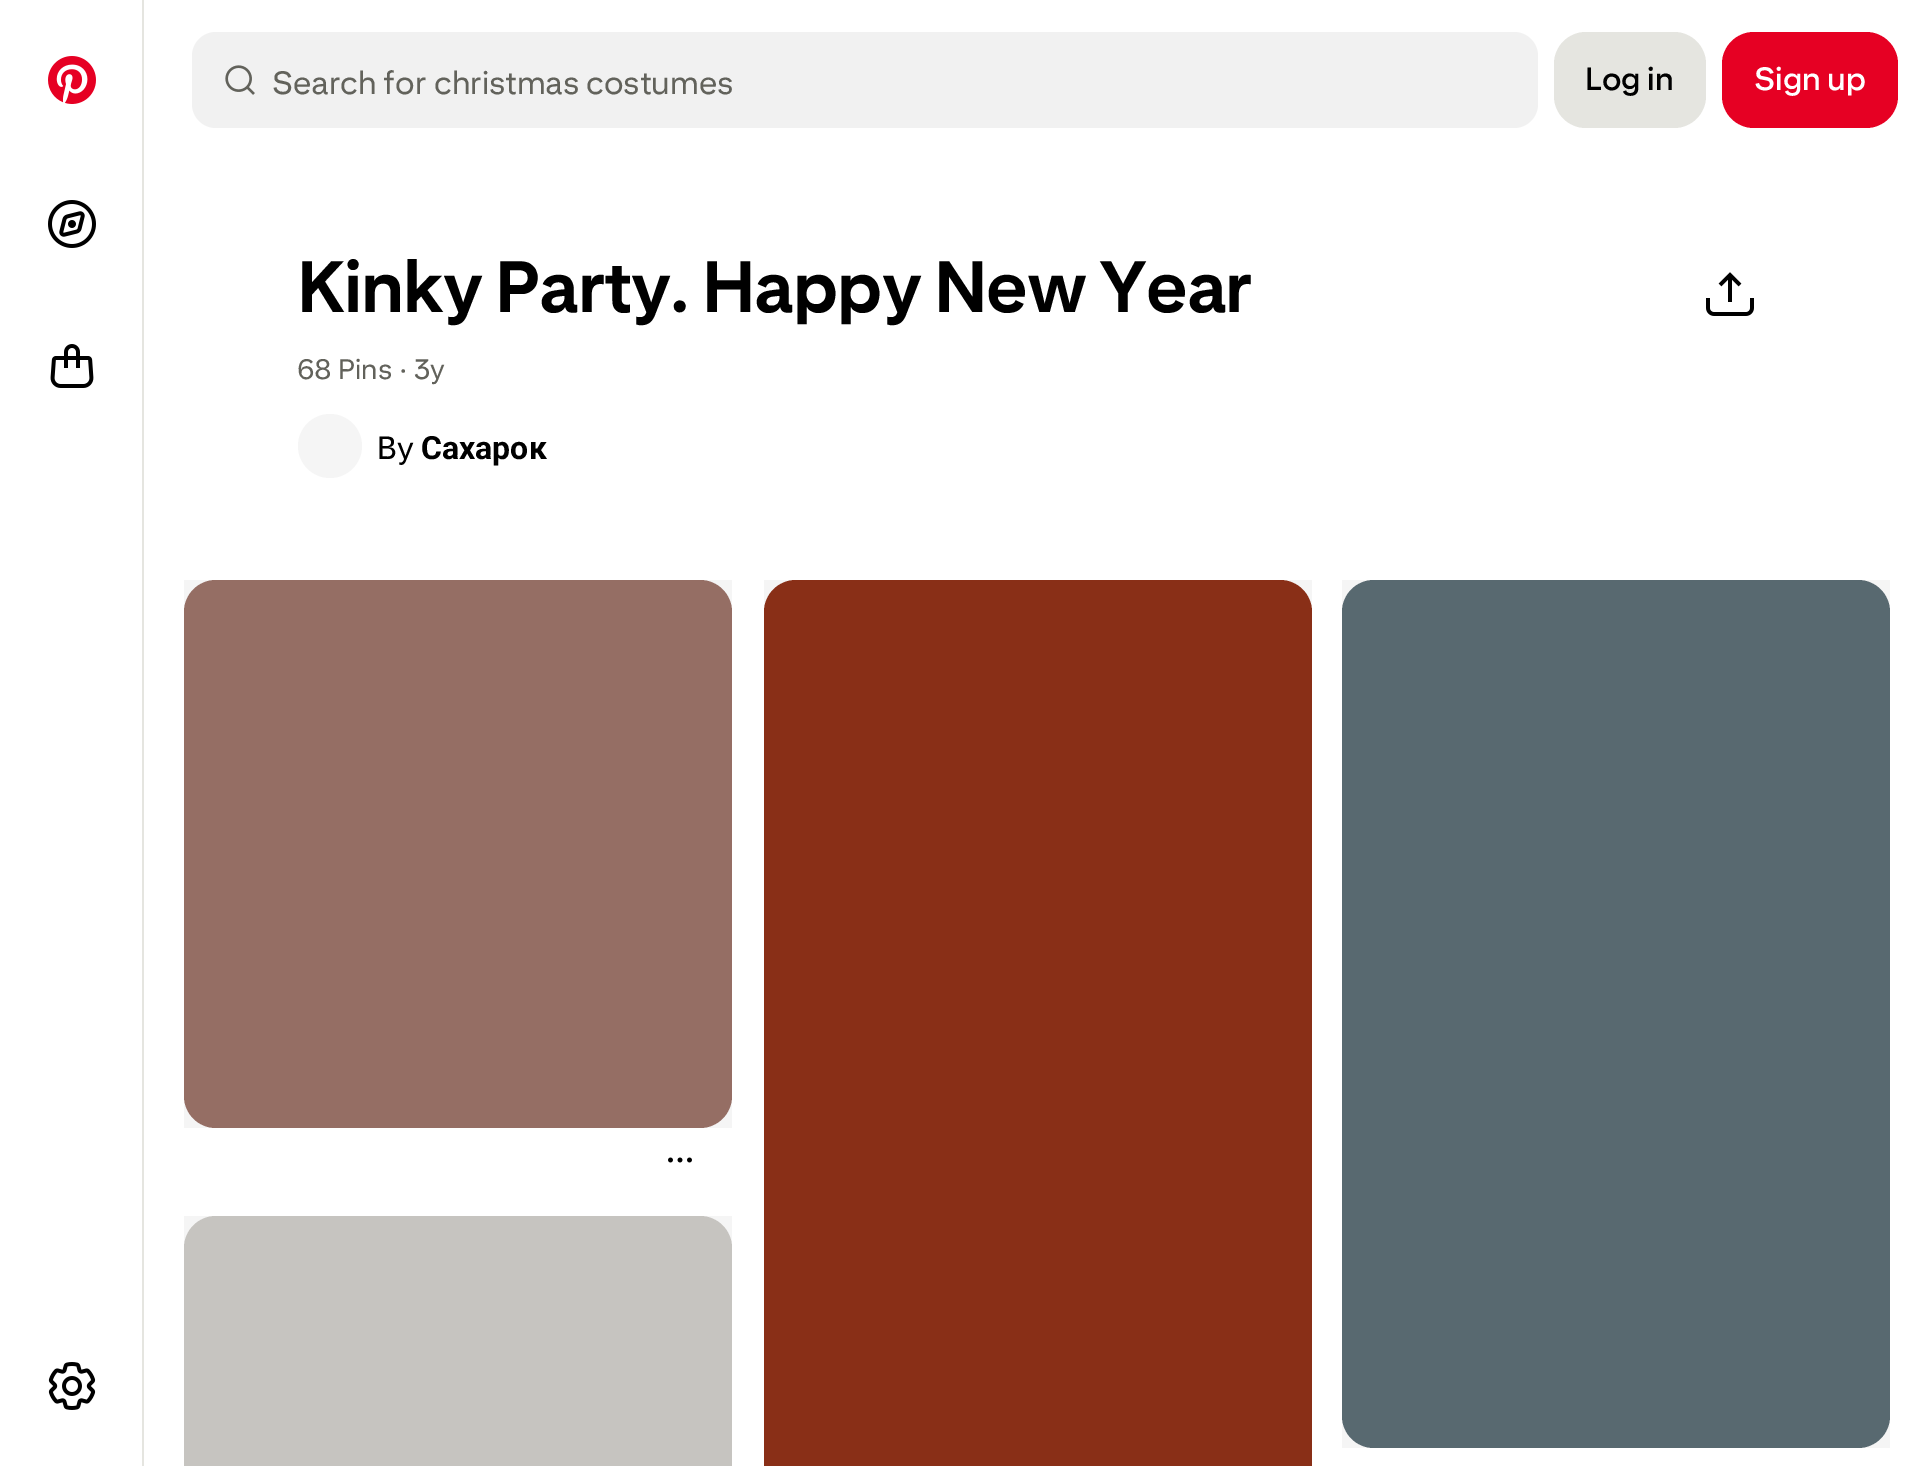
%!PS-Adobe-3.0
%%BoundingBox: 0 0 1929 1466
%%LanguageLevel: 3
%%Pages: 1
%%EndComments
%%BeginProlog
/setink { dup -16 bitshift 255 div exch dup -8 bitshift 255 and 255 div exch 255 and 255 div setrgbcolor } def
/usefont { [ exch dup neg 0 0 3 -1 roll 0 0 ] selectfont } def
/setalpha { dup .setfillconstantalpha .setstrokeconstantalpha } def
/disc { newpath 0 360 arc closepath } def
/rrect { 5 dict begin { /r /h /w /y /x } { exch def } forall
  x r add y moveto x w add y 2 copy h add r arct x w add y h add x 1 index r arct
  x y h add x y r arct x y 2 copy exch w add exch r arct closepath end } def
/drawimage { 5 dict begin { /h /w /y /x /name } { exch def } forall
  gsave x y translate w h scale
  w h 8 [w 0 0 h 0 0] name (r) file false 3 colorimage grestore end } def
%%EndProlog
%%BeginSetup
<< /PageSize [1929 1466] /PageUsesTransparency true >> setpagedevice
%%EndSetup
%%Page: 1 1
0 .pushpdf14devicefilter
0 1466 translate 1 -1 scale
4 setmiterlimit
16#FFFFFF setink
0 0 1929 1466 rectfill
16#E5E5E0 setink
142 0 2 1466 rectfill
(img1.raw) 48 56 48 48 drawimage
(img2.raw) 48 200 48 48 drawimage
(img3.raw) 50 344 44 44 drawimage
(img4.raw) 48 1362 48 48 drawimage
16#F1F1F1 setink
192 32 1346 96 24 rrect fill
(img5.raw) 225 65 30 30 drawimage
/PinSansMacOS-Regular 32 usefont
16#62625B setink
272 94 moveto (Search for) show
434 94 moveto (christmas costumes) show
16#E5E5E0 setink
1554 32 152 96 32 rrect fill
/PinSansMacOS-Medium 32 usefont
16#000000 setink
1585 90 moveto (Log in) show
16#E60023 setink
1722 32 176 96 32 rrect fill
16#FFFFFF setink
1754 90 moveto (Sign up) show
/PinSansMacOS-Bold 72 usefont
16#000000 setink
297 312 moveto -1 0 (Kinky Party. Happy New Year) ashow
/PinSansMacOS-Regular 28 usefont
16#62625B setink
[
    [(68 Pins) 297 379]
    [(·) 400 379]
    [(3y) 414 379]
] { aload pop moveto show } forall
16#F5F5F5 setink
330 446 32 disc fill
/PinSansMacOS-Regular 32 usefont
16#000000 setink
377 459 moveto (By) show
/Roboto-Bold 32 usefont
421 459 moveto (Сахарок) show
(img6.raw) 1706 272 48 44 drawimage
16#9B7268 setink
184 580 548 548 32 rrect fill
0.04 setalpha
16#000000 setink
184 580 548 548 rectfill
1 setalpha
(img7.raw) 668 1157 24 6 drawimage
16#8F3118 setink
764 580 548 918 32 rrect fill
0.04 setalpha
16#000000 setink
764 580 548 886 rectfill
1 setalpha
16#5C6D75 setink
1342 580 548 868 32 rrect fill
0.04 setalpha
16#000000 setink
1342 580 548 868 rectfill
1 setalpha
16#CECCC8 setink
184 1216 548 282 32 rrect fill
0.04 setalpha
16#000000 setink
184 1216 548 250 rectfill
.poppdf14devicefilter showpage
%%EOF
